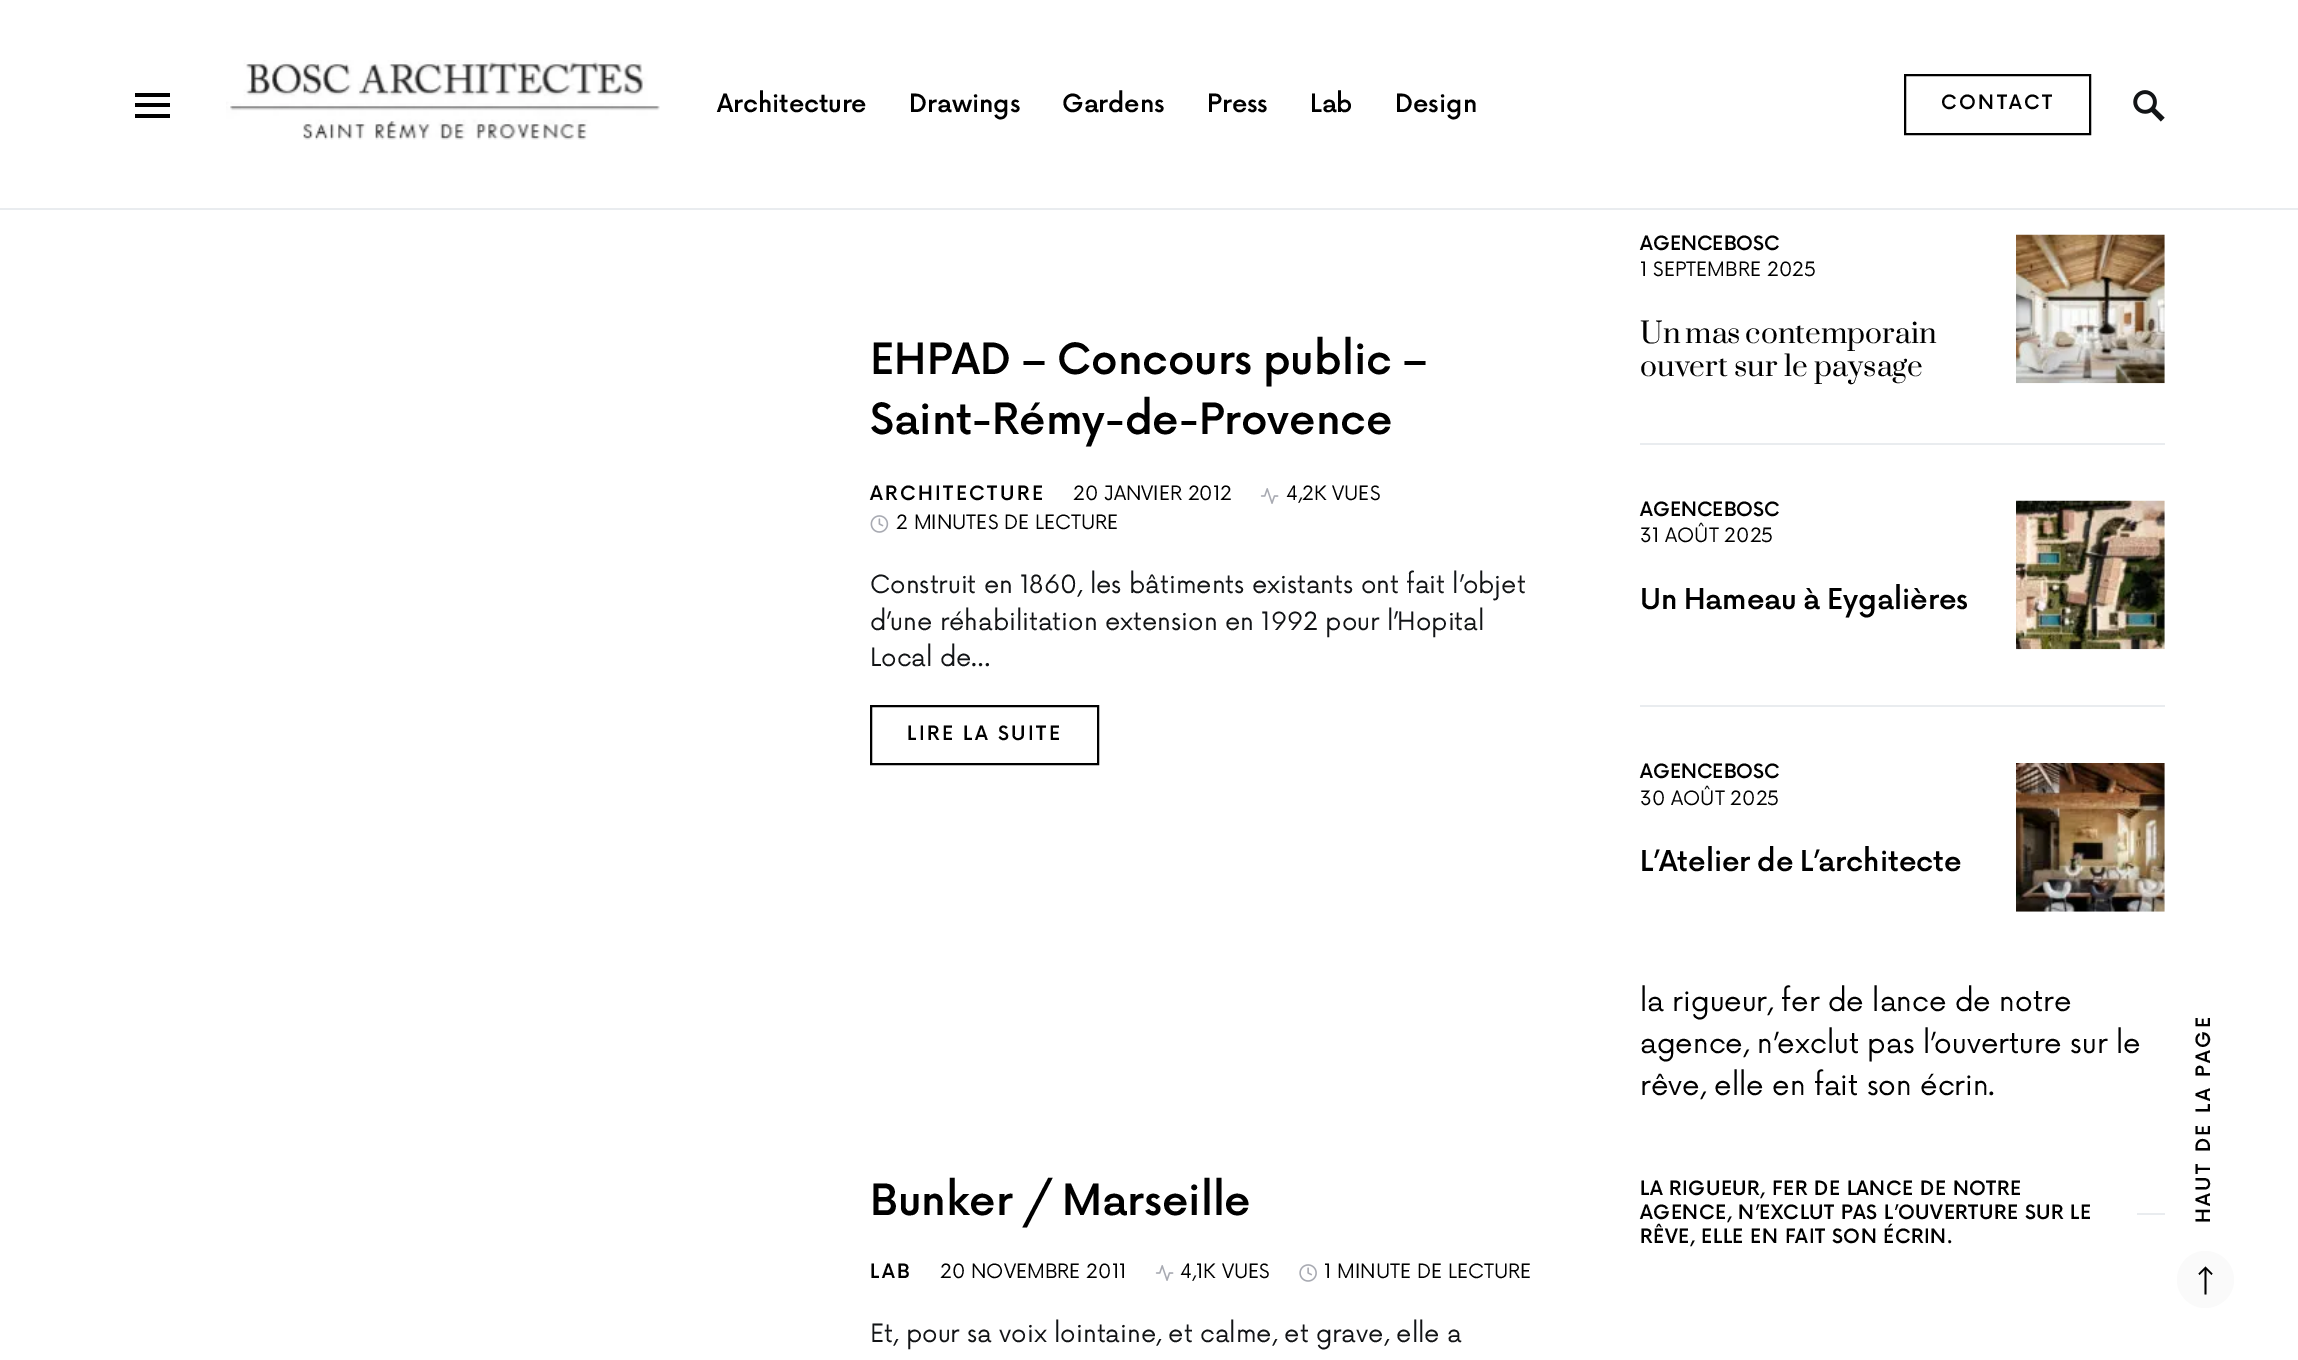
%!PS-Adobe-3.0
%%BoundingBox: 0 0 2298 1360
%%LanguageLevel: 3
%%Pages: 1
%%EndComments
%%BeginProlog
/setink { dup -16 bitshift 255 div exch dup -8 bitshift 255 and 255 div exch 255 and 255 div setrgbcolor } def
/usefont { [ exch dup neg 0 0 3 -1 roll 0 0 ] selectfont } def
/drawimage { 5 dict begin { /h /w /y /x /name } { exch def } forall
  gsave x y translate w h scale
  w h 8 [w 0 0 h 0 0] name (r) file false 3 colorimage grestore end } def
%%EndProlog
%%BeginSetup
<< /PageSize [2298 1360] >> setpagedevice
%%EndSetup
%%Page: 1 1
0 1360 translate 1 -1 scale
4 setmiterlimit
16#FFFFFF setink
0 0 2298 1360 rectfill
[
    [0 208 2298 2 16#E9ECEF]
    [135 93 35 4 16#000000]
    [135 103 35 4 16#000000]
    [135 114 35 4 16#000000]
] { aload pop setink rectfill } forall
(img1.raw) 226 60 434 80 drawimage
/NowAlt-Medium 24.5 usefont
[
    [(Architecture) 717 112]
    [(Drawings) 909 112]
    [(Gardens) 1062 112]
    [(Press) 1207 112]
    [(Lab) 1310 112]
    [(Design) 1395 112]
] { aload pop moveto show } forall
2 setlinewidth
1905 75 185 59 rectstroke
/NowAlt-Medium 19.25 usefont
1941 109 moveto 2.4 0 (CONTACT) ashow
(img2.raw) 2133 90 32 32 drawimage
/NowAlt-Medium 42 usefont
870 374 moveto -2.5 0 32 (EHPAD – Concours public –) widthshow
870 434 moveto (Saint-Rémy-de-Provence) show
/NowAlt-Medium 19.25 usefont
870 500 moveto 2.4 0 (ARCHITECTURE) ashow
/NowAlt-Regular 19.25 usefont
1073 500 moveto (20 JANVIER 2012) show
(img3.raw) 1260 488 19 16 drawimage
1286 500 moveto (4,2K VUES) show
(img4.raw) 870 515 19 18 drawimage
896 529 moveto (2 MINUTES DE LECTURE) show
/NowAlt-Regular 24.5 usefont
16#121416 setink
[
    [(Construit en 1860, les bâtiments existants ont fait l’objet) 870 593]
    [(d’une réhabilitation extension en 1992 pour l’Hopital) 870 630]
    [(Local de…) 870 666]
] { aload pop moveto show } forall
16#000000 setink
871 706 227 58 rectstroke
/NowAlt-Medium 19.25 usefont
907 740 moveto 2.4 0 (LIRE LA SUITE) ashow
/NowAlt-Medium 42 usefont
870 1215 moveto -2.5 0 32 (Bunker / Marseille) widthshow
/NowAlt-Medium 19.25 usefont
870 1278 moveto 2.4 0 (LAB) ashow
/NowAlt-Regular 19.25 usefont
940 1278 moveto (20 NOVEMBRE 2011) show
(img3.raw) 1155 1265 19 16 drawimage
1180 1278 moveto (4,1K VUES) show
(img5.raw) 1299 1264 18 18 drawimage
1324 1278 moveto (1 MINUTE DE LECTURE) show
/NowAlt-Regular 24.5 usefont
16#121416 setink
870 1342 moveto (Et, pour sa voix lointaine, et calme, et grave, elle a) show
/NowAlt-Medium 19.25 usefont
16#000000 setink
1640 250 moveto (AGENCEBOSC) show
/NowAlt-Regular 19.25 usefont
1640 276 moveto (1 SEPTEMBRE 2025) show
/Prata-Regular 28 usefont
1640 343 moveto -2 0 32 (Un mas contemporain) widthshow
1640 376 moveto (ouvert sur le paysage) show
(img6.raw) 2016 234 149 150 drawimage
16#E9ECEF setink
1640 443 525 2 rectfill
/NowAlt-Medium 19.25 usefont
16#000000 setink
1640 516 moveto (AGENCEBOSC) show
/NowAlt-Regular 19.25 usefont
1640 542 moveto (31 AOÛT 2025) show
/NowAlt-Medium 28 usefont
1640 609 moveto -2 0 32 (Un Hameau à Eygalières) widthshow
(img7.raw) 2016 500 149 150 drawimage
16#E9ECEF setink
1640 705 525 2 rectfill
/NowAlt-Medium 19.25 usefont
16#000000 setink
1640 778 moveto (AGENCEBOSC) show
/NowAlt-Regular 19.25 usefont
1640 805 moveto (30 AOÛT 2025) show
/NowAlt-Medium 28 usefont
1640 871 moveto -2 0 32 (L’Atelier de L’architecte) widthshow
(img8.raw) 2016 763 149 149 drawimage
/NowAlt-Regular 28 usefont
[
    [(la rigueur, fer de lance de notre) 1640 1011]
    [(agence, n’exclut pas l’ouverture sur le) 1640 1053]
    [(rêve, elle en fait son écrin.) 1640 1095]
] { aload pop moveto show } forall
/NowAlt-Medium 19.25 usefont
1640 1195 moveto 0.5 0 (LA RIGUEUR, FER DE LANCE DE NOTRE) ashow
1640 1219 moveto 0.5 0 (AGENCE, N’EXCLUT PAS L’OUVERTURE SUR LE) ashow
1640 1243 moveto 0.5 0 (RÊVE, ELLE EN FAIT SON ÉCRIN.) ashow
16#E9ECEF setink
2137 1213 28 2 rectfill
16#000000 setink
gsave 2210 1223 translate -90 rotate 0 0 moveto 1 0 32 2.4 0 (HAUT DE LA PAGE) awidthshow grestore
16#FAFAFA setink
2177 1280 moveto 2177 1264 2190 1251 2205 1251 curveto 2221 1251 2234 1264 2234 1280 curveto 2234 1295 2221 1308 2205 1308 curveto 2190 1308 2177 1295 2177 1280 curveto closepath fill
16#000000 setink
2206.5 1294.5 moveto 2206.5 1270 lineto 2211.5 1275 lineto 2212.5 1273.5 lineto 2205.5 1266.5 lineto 2198.5 1273.5 lineto 2199.5 1275 lineto 2204.5 1270 lineto 2204.5 1294.5 lineto closepath fill
showpage
%%EOF
